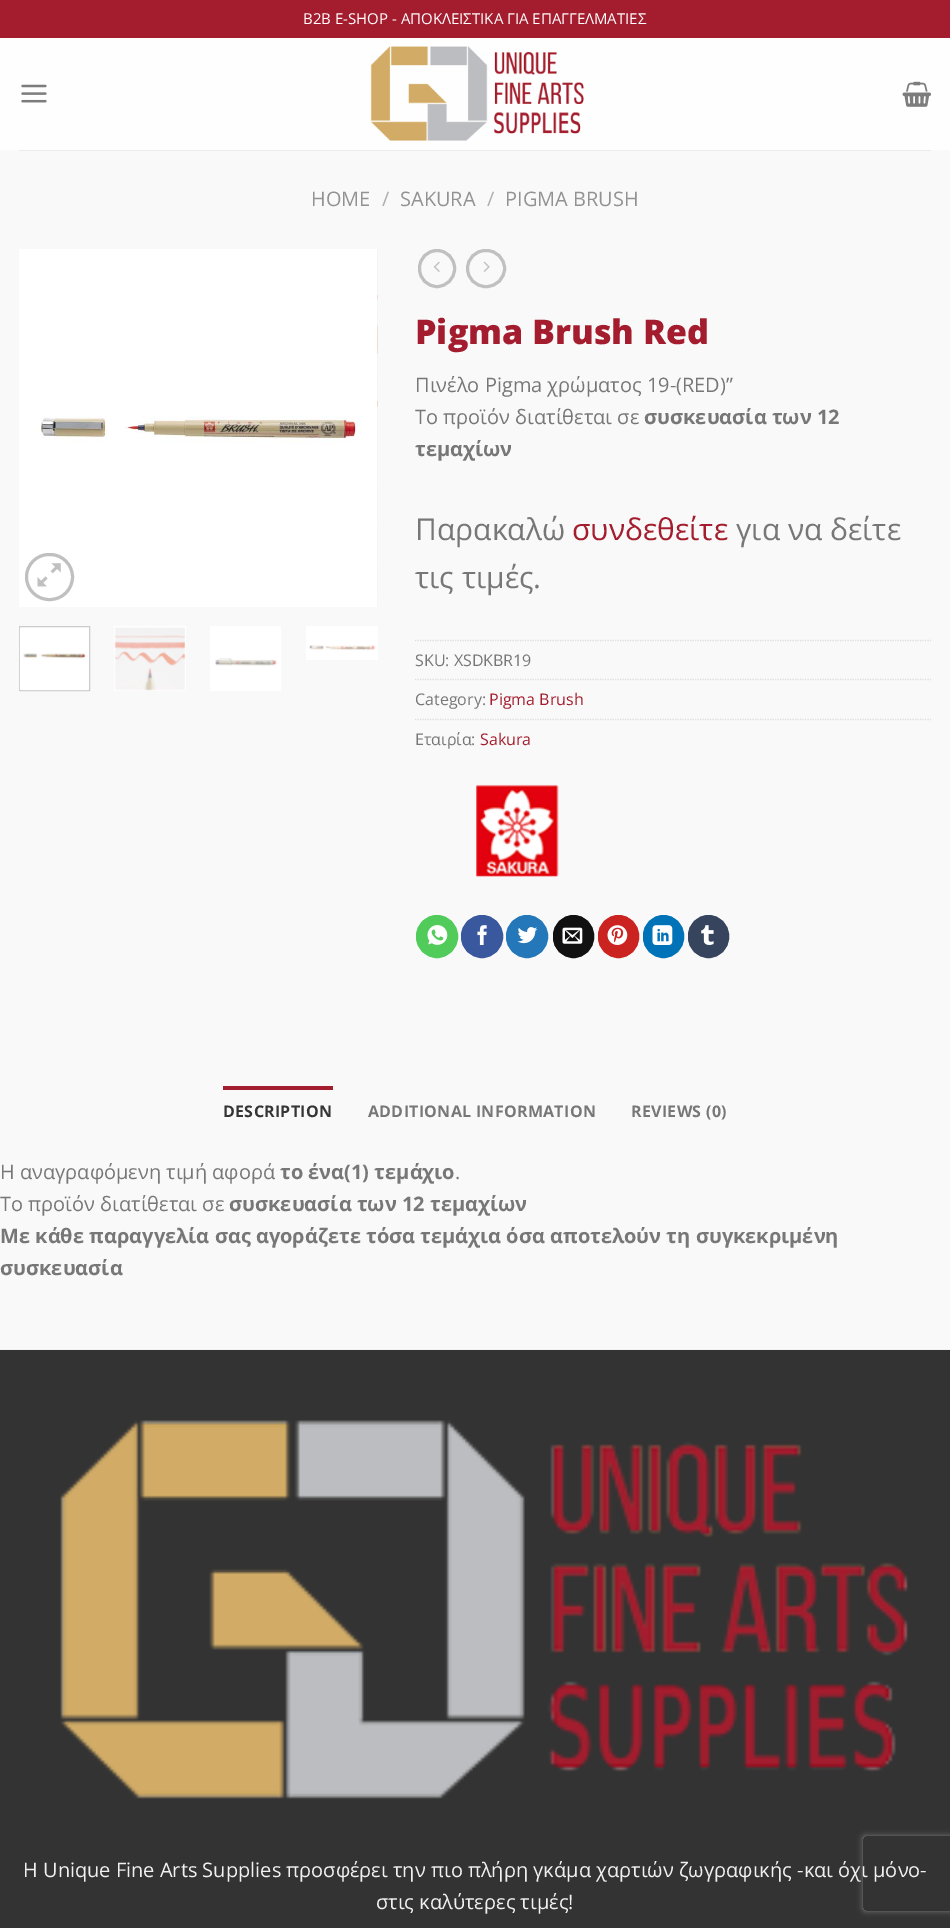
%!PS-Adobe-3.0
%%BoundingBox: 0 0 950 1928
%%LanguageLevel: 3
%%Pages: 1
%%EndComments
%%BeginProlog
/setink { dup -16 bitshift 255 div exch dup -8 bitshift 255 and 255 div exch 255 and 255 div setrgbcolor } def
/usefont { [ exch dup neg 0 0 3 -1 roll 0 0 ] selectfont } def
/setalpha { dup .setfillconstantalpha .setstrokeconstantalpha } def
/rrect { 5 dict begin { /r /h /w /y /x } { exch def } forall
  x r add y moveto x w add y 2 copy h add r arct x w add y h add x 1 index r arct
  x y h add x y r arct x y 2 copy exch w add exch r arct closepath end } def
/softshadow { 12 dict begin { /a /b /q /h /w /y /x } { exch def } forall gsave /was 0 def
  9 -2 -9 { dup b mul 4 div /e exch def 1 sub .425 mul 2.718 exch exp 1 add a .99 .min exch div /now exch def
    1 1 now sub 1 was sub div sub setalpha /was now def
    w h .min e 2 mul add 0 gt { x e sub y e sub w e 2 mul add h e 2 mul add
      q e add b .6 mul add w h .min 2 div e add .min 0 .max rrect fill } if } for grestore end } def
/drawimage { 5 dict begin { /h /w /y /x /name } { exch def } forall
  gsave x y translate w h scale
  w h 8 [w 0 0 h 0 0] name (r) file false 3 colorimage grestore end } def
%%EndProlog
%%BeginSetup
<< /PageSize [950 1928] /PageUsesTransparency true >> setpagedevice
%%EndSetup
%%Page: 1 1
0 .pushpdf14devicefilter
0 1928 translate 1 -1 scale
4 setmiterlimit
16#F9F9F9 setink
0 0 950 1928 rectfill
16#A41D2E setink
0 0 950 38 rectfill
/OpenSans-Regular 15 usefont
16#FFFFFF setink
303 24 moveto (B2B Ε-SHOP - ΑΠΟΚΛΕΙΣΤΙΚΑ ΓΙΑ ΕΠΑΓΓΕΛΜΑΤΙΕΣ) show
16#FEFEFE setink
0 38 950 112 rectfill
(img1.raw) 21 84 26 19 drawimage
(img2.raw) 370 46 214 95 drawimage
(img3.raw) 902 81 29 26 drawimage
16#ECECEC setink
19 150 912 1 rectfill
/OpenSans-Regular 20 usefont
16#929292 setink
311 206 moveto (HOME) show
16#AEAEAE setink
382 206 moveto (/) show
16#929292 setink
400 206 moveto (SAKURA) show
16#AEAEAE setink
487 206 moveto (/) show
16#929292 setink
505 206 moveto (PIGMA BRUSH) show
(img4.raw) 19 249 358 358 drawimage
(img5.raw) 377 249 1 358 drawimage
16#C0C0C0 setink
3 setlinewidth
26.5 554.5 46 45 22.5 rrect stroke
(img6.raw) 37 563 24 24 drawimage
16#FFFFFF setink
19.5 626.5 moveto 89.5 626.5 lineto 89.5 690.5 lineto 19.5 690.5 lineto closepath gsave fill grestore
16#CCCCCC setink
1 setlinewidth
stroke
(img7.raw) 19 628 70 63 drawimage
16#FFFFFF setink
114 626 72 65 rectfill
(img8.raw) 114 627 72 64 drawimage
210 626 71 65 rectfill
(img9.raw) 215 658 62 8 drawimage
306 626 72 34 rectfill
(img10.raw) 309 645 67 6 drawimage
16#C0C0C0 setink
3 setlinewidth
419.5 250.5 35 36 17.5 rrect stroke
(img11.raw) 433 261 7 11 drawimage
467.5 250.5 37 36 18 rrect stroke
(img12.raw) 483 261 7 11 drawimage
/OpenSans-ExtraBold 34 usefont
16#A41D2E setink
415 344 moveto (Pigma Brush Red) show
/OpenSans-Regular 20 usefont
16#777777 setink
415 392 moveto (Πινέλο Pigma χρώματος 19-\(RED\)”) show
415 424 moveto (Το προϊόν διατίθεται σε) show
/OpenSans-Bold 20 usefont
644 424 moveto (συσκευασία των 12) show
415 456 moveto (τεμαχίων) show
/OpenSans-Regular 30 usefont
415 540 moveto (Παρακαλώ) show
16#A41D2E setink
572 540 moveto (συνδεθείτε) show
16#777777 setink
736 540 moveto (για να δείτε) show
415 588 moveto (τις τιμές.) show
16#DDDDDD setink
1.2 setlinewidth
[1.25 1.25] 0 setdash
415 640.5 moveto 931 640.5 lineto stroke
/OpenSans-Regular 16 usefont
16#777777 setink
415 666 moveto (SKU: XSDKBR19) show
16#DDDDDD setink
415 679.5 moveto 931 679.5 lineto stroke
16#777777 setink
415 705 moveto (Category:) show
16#A41D2E setink
489 705 moveto (Pigma Brush) show
16#DDDDDD setink
415 719.5 moveto 931 719.5 lineto stroke
16#777777 setink
415 745 moveto (Εταιρία:) show
16#A41D2E setink
480 745 moveto (Sakura) show
(img13.raw) 476 784 83 93 drawimage
16#51CB5A setink
416.5 915.5 41 42 20.5 rrect gsave fill grestore
1 setlinewidth
[] 0 setdash
stroke
(img14.raw) 427 925 21 20 drawimage
16#3A589D setink
461.5 915.5 41 42 20.5 rrect gsave fill grestore
stroke
(img15.raw) 477 925 10 20 drawimage
16#2478BA setink
506.5 915.5 41 42 20.5 rrect gsave fill grestore
stroke
(img16.raw) 517 927 21 17 drawimage
16#111111 setink
553.5 915.5 40 42 20 rrect gsave fill grestore
stroke
(img17.raw) 562 927 21 17 drawimage
16#CB2320 setink
598.5 915.5 40 42 20 rrect gsave fill grestore
stroke
(img18.raw) 607 925 21 20 drawimage
16#0072B7 setink
643.5 915.5 40 42 20 rrect gsave fill grestore
stroke
(img19.raw) 652 925 21 20 drawimage
16#36455D setink
688.5 915.5 40 42 20 rrect gsave fill grestore
stroke
(img20.raw) 701 925 13 20 drawimage
16#A41D2E setink
223 1086 110 4 rectfill
/OpenSans-Bold 16 usefont
16#353535 setink
223 1117 moveto 0.3 0 (DESCRIPTION) ashow
16#777777 setink
368 1117 moveto 0.3 0 (ADDITIONAL INFORMATION) ashow
631 1117 moveto 0.3 0 (REVIEWS \(0\)) ashow
/OpenSans-Regular 20 usefont
0 1179 moveto (Η αναγραφόμενη τιμή αφορά) show
/OpenSans-Bold 20 usefont
280 1179 moveto (το ένα\(1\) τεμάχιο) show
/OpenSans-Regular 20 usefont
455 1179 moveto (.) show
0 1211 moveto (Το προϊόν διατίθεται σε) show
/OpenSans-Bold 20 usefont
[
    [(συσκευασία των 12 τεμαχίων) 229 1211]
    [(Με κάθε παραγγελία σας αγοράζετε τόσα τεμάχια όσα αποτελούν τη συγκεκριμένη) 0 1243]
    [(συσκευασία) 0 1275]
] { aload pop moveto show } forall
16#333333 setink
0 1350 950 578 rectfill
16#F1F1F1 setink
0 1349 950 1 rectfill
(img21.raw) 60 1420 848 379 drawimage
/OpenSans-Regular 20 usefont
23 1877 moveto (Η Unique Fine Arts Supplies προσφέρει την πιο πλήρη γκάμα χαρτιών ζωγραφικής -και όχι μόνο-) show
376 1909 moveto (στις καλύτερες τιμές!) show
gsave
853 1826 moveto 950 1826 lineto 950 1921 lineto 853 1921 lineto closepath 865.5 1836 moveto 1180.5 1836 lineto 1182 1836 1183 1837 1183 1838.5 curveto 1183 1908.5 lineto 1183 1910 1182 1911 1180.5 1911 curveto 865.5 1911 lineto 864 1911 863 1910 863 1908.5 curveto 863 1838.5 lineto 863 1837 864 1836 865.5 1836 curveto closepath eoclip newpath
16#808080 setink
863 1836 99 75 2.5 3 1 softshadow
grestore
.poppdf14devicefilter showpage
%%EOF
